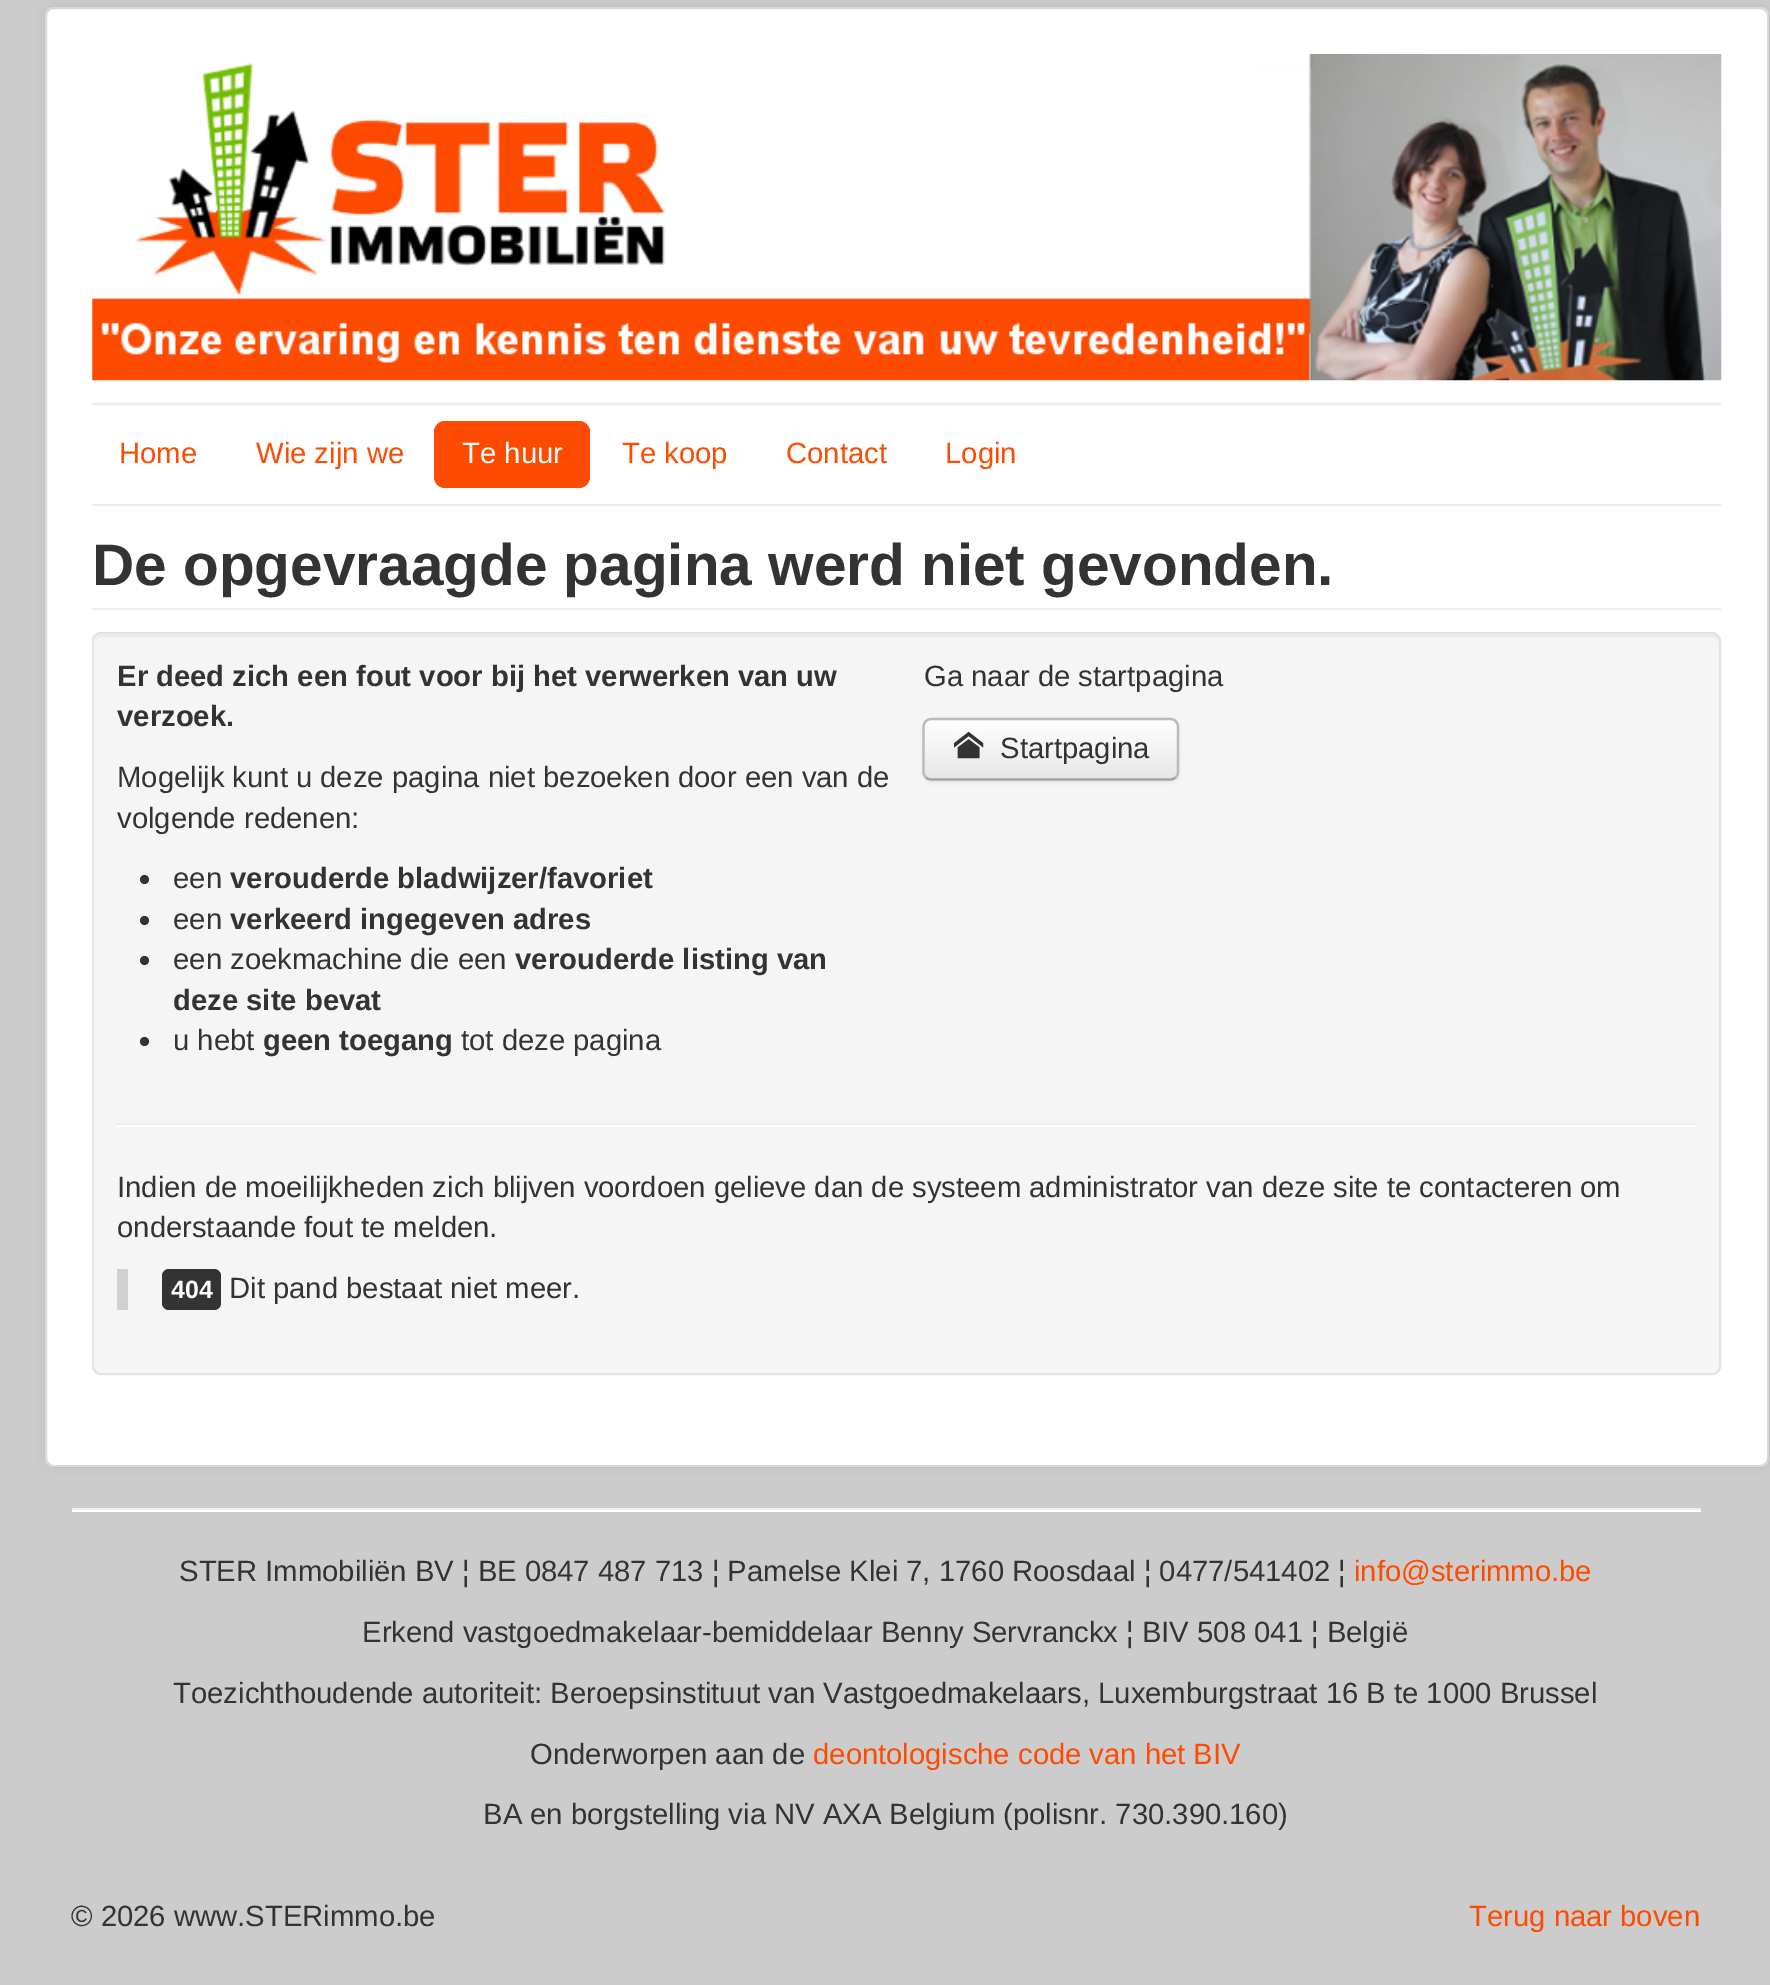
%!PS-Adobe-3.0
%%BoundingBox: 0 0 1770 1985
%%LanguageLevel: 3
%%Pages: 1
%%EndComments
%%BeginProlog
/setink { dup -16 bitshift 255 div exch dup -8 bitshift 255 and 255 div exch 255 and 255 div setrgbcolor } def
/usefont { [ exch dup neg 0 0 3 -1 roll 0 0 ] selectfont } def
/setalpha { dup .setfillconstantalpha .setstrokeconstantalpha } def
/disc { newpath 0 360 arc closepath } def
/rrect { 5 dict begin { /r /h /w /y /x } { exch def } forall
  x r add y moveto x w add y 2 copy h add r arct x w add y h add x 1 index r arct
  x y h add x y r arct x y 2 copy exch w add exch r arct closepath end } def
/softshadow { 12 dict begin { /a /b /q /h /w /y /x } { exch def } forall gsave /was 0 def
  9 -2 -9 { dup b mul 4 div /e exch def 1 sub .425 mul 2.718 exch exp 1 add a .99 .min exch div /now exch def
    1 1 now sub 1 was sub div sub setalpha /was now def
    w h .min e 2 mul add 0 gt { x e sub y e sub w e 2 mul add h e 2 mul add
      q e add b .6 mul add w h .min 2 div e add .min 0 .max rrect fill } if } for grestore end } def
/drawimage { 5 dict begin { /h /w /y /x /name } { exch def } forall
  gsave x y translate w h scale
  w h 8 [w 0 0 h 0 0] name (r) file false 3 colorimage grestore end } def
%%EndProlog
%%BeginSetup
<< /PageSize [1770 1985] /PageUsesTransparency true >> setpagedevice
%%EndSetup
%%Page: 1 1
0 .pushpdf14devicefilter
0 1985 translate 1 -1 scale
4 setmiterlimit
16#CCCCCC setink
0 0 1770 1985 rectfill
16#000000 setink
45 7 1724 1460 9 7 0.05 softshadow
16#FFFFFF setink
45 7 1724 1460 9 rrect fill
0.15 setalpha
16#000000 setink
2 setlinewidth
46 8 1722 1458 8 rrect stroke
1 setalpha
(img1.raw) 92 54 1630 327 drawimage
16#ECECEC setink
92 403 1629 2 rectfill
92 504 1629 2 rectfill
/LiberationSans-Regular 29.25 usefont
16#FD4B01 setink
119 463 moveto (Home) show
256 463 moveto (Wie zijn we) show
434 421 156 67 11 rrect fill
16#FFFFFF setink
462 463 moveto (Te huur) show
16#FD4B01 setink
[
    [(Te koop) 622 463]
    [(Contact) 786 463]
    [(Login) 945 463]
] { aload pop moveto show } forall
16#EEEEEE setink
92 608 1629 2 rectfill
/LiberationSans-Bold 58.5 usefont
16#333333 setink
92 585 moveto (De opgevraagde pagina werd niet gevonden.) show
16#F5F5F5 setink
92 632 1629 743 9 rrect fill
16#E9E9E9 setink
101 637 moveto 1712 637 lineto 1716 637 1719 640 1719 644 curveto 1719 642 lineto 1719 638 1716 635 1712 635 curveto 102 635 lineto 99 635 96 637 95 640 curveto 97 638 99 637 101 637 curveto closepath fill
16#E3E3E3 setink
93 633 1627 741 8 rrect stroke
/LiberationSans-Bold 29.25 usefont
16#333333 setink
117 686 moveto (Er deed zich een fout voor bij het verwerken van uw) show
117 726 moveto (verzoek.) show
/LiberationSans-Regular 29.25 usefont
117 787 moveto (Mogelijk kunt u deze pagina niet bezoeken door een van de) show
117 828 moveto (volgende redenen:) show
144.5 879.5 4.5 disc fill
173 888 moveto (een) show
/LiberationSans-Bold 29.25 usefont
230 888 moveto (verouderde bladwijzer/favoriet) show
144.5 920.5 4.5 disc fill
/LiberationSans-Regular 29.25 usefont
173 929 moveto (een) show
/LiberationSans-Bold 29.25 usefont
230 929 moveto (verkeerd ingegeven adres) show
144.5 960.5 4.5 disc fill
/LiberationSans-Regular 29.25 usefont
173 969 moveto (een zoekmachine die een) show
/LiberationSans-Bold 29.25 usefont
515 969 moveto (verouderde listing van) show
173 1010 moveto (deze site bevat) show
144.5 1041.5 4.5 disc fill
/LiberationSans-Regular 29.25 usefont
173 1050 moveto (u hebt) show
/LiberationSans-Bold 29.25 usefont
263 1050 moveto (geen toegang) show
/LiberationSans-Regular 29.25 usefont
461 1050 moveto (tot deze pagina) show
924 686 moveto (Ga naar de startpagina) show
16#000000 setink
923 720 256 63 9 2 0.05 softshadow
16#F5F5F5 setink
923 718 256 63 9 rrect fill
gsave
923 718 256 63 9 rrect clip newpath
gsave 923 720 moveto 1179 720 lineto 1179 779 lineto 923 779 lineto closepath clip newpath
<< /ShadingType 2 /ColorSpace /DeviceRGB /Coords [1051 720 1051 779] /Extend [true true] /Function << /FunctionType 2 /Domain [0 1] /C0 [1 1 1] /C1 [0.902 0.902 0.902] /N 1 >> >> shfill grestore
grestore
16#A2A2A2 setink
2.2 setlinewidth
1175.5 777.5 moveto 1174 779 1172 779.5 1170 779.5 curveto 931.5 779.5 lineto 929.5 779.5 927.5 779 926 777.5 curveto stroke
16#BBBBBB setink
926 777.5 moveto 924.5 776 923.5 774 923.5 772 curveto 923.5 727 lineto 923.5 724.5 924.5 722.5 926 721 curveto 927.5 719.5 929.5 719 931.5 719 curveto 1170 719 lineto 1172 719 1174 719.5 1175.5 721 curveto 1177 722.5 1178 724.5 1178 727 curveto 1178 772 lineto 1178 774 1177 776 1175.5 777.5 curveto stroke
(img2.raw) 954 731 30 28 drawimage
16#333333 setink
1000 758 moveto (Startpagina) show
16#EEEEEE setink
117 1123 1580 2 rectfill
16#FFFFFF setink
117 1125 1580 2 rectfill
16#333333 setink
117 1197 moveto (Indien de moeilijkheden zich blijven voordoen gelieve dan de systeem administrator van deze site te contacteren om) show
117 1237 moveto (onderstaande fout te melden.) show
16#D0D0D0 setink
117 1269 11 41 rectfill
16#333333 setink
162 1269 59 41 7 rrect fill
/LiberationSans-Bold 25 usefont
16#FFFFFF setink
171 1298 moveto (404) show
/LiberationSans-Regular 29.25 usefont
16#333333 setink
229 1298 moveto (Dit pand bestaat niet meer.) show
16#EEEEEE setink
72 1508 1629 2 rectfill
16#FFFFFF setink
72 1510 1629 2 rectfill
16#333333 setink
179 1581 moveto (STER Immobiliën BV ¦ BE 0847 487 713 ¦ Pamelse Klei 7, 1760 Roosdaal ¦ 0477/541402 ¦) show
16#FD4B01 setink
1354 1581 moveto (info@sterimmo.be) show
16#333333 setink
[
    [(Erkend vastgoedmakelaar-bemiddelaar Benny Servranckx ¦ BIV 508 041 ¦ België) 362 1642]
    [(Toezichthoudende autoriteit: Beroepsinstituut van Vastgoedmakelaars, Luxemburgstraat 16 B te 1000 Brussel) 173 1703]
    [(Onderworpen aan de) 530 1764]
] { aload pop moveto show } forall
16#FD4B01 setink
813 1764 moveto (deontologische code van het BIV) show
16#333333 setink
483 1824 moveto (BA en borgstelling via NV AXA Belgium \(polisnr. 730.390.160\)) show
71 1926 moveto (© 2026 www.STERimmo.be) show
16#FD4B01 setink
1469 1926 moveto (Terug naar boven) show
.poppdf14devicefilter showpage
%%EOF
